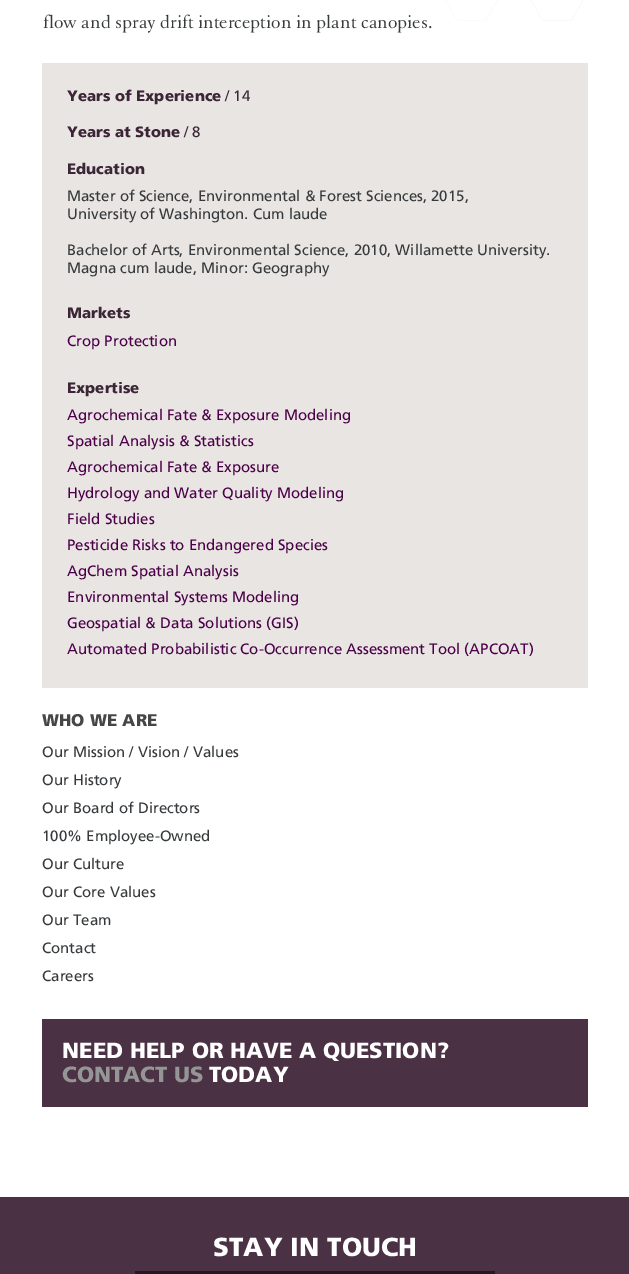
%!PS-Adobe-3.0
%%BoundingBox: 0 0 629 1274
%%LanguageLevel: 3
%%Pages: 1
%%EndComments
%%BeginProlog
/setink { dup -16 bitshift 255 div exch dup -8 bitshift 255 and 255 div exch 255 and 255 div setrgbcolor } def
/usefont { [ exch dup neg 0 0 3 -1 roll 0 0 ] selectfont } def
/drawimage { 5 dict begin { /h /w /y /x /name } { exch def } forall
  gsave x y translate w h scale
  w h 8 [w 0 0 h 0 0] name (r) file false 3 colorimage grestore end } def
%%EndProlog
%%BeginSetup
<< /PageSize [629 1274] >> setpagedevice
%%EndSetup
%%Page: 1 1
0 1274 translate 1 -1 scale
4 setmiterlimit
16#FFFFFF setink
0 0 629 1274 rectfill
(img1.raw) 445 0 138 21 drawimage
/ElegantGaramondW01-Regular 20 usefont
16#373A3C setink
43 28 moveto (flow and spray drift interception in plant canopies.) show
16#E8E5E2 setink
42 63 546 625 rectfill
/Frutiger-Black 15 usefont
16#3B2536 setink
67 101 moveto (Years of Experience) show
/Frutiger-Regular 15 usefont
225 101 moveto (/ 14) show
/Frutiger-Black 15 usefont
67 137 moveto (Years at Stone) show
/Frutiger-Regular 15 usefont
184 137 moveto (/ 8) show
/Frutiger-Black 15 usefont
67 174 moveto (Education) show
/Frutiger-Regular 15 usefont
16#373A3C setink
[
    [(Master of Science, Environmental & Forest Sciences, 2015,) 67 201]
    [(University of Washington. Cum laude) 67 219]
    [(Bachelor of Arts, Environmental Science, 2010, Willamette University.) 67 255]
    [(Magna cum laude, Minor: Geography) 67 273]
] { aload pop moveto show } forall
/Frutiger-Black 15 usefont
16#3B2536 setink
67 318 moveto (Markets) show
/Frutiger-Regular 15 usefont
16#4C0049 setink
67 346 moveto (Crop Protection) show
/Frutiger-Black 15 usefont
16#3B2536 setink
67 393 moveto (Expertise) show
/Frutiger-Regular 15 usefont
16#4C0049 setink
[
    [(Agrochemical Fate & Exposure Modeling) 67 420]
    [(Spatial Analysis & Statistics) 67 446]
    [(Agrochemical Fate & Exposure) 67 472]
    [(Hydrology and Water Quality Modeling) 67 498]
    [(Field Studies) 67 524]
    [(Pesticide Risks to Endangered Species) 67 550]
    [(AgChem Spatial Analysis) 67 576]
    [(Environmental Systems Modeling) 67 602]
    [(Geospatial & Data Solutions \(GIS\)) 67 628]
    [(Automated Probabilistic Co-Occurrence Assessment Tool \(APCOAT\)) 67 654]
] { aload pop moveto show } forall
/Frutiger-Black 17 usefont
16#464646 setink
42 726 moveto (WHO WE ARE) show
/Frutiger-Regular 15 usefont
16#373A3C setink
[
    [(Our Mission / Vision / Values) 42 757]
    [(Our History) 42 785]
    [(Our Board of Directors) 42 813]
    [(100% Employee-Owned) 42 841]
    [(Our Culture) 42 869]
    [(Our Core Values) 42 897]
    [(Our Team) 42 925]
    [(Contact) 42 953]
    [(Careers) 42 981]
] { aload pop moveto show } forall
16#4A3144 setink
42 1019 546 88 rectfill
/Frutiger-Black 22 usefont
16#FFFFFF setink
62 1058 moveto (NEED HELP OR HAVE A QUESTION?) show
16#959595 setink
62 1082 moveto (CONTACT US) show
16#FFFFFF setink
209 1082 moveto (TODAY) show
16#4A3144 setink
0 1197 629 77 rectfill
/Frutiger-Black 26 usefont
16#FFFFFF setink
213 1256 moveto (STAY IN TOUCH) show
16#281824 setink
135 1271 360 3 rectfill
showpage
%%EOF
